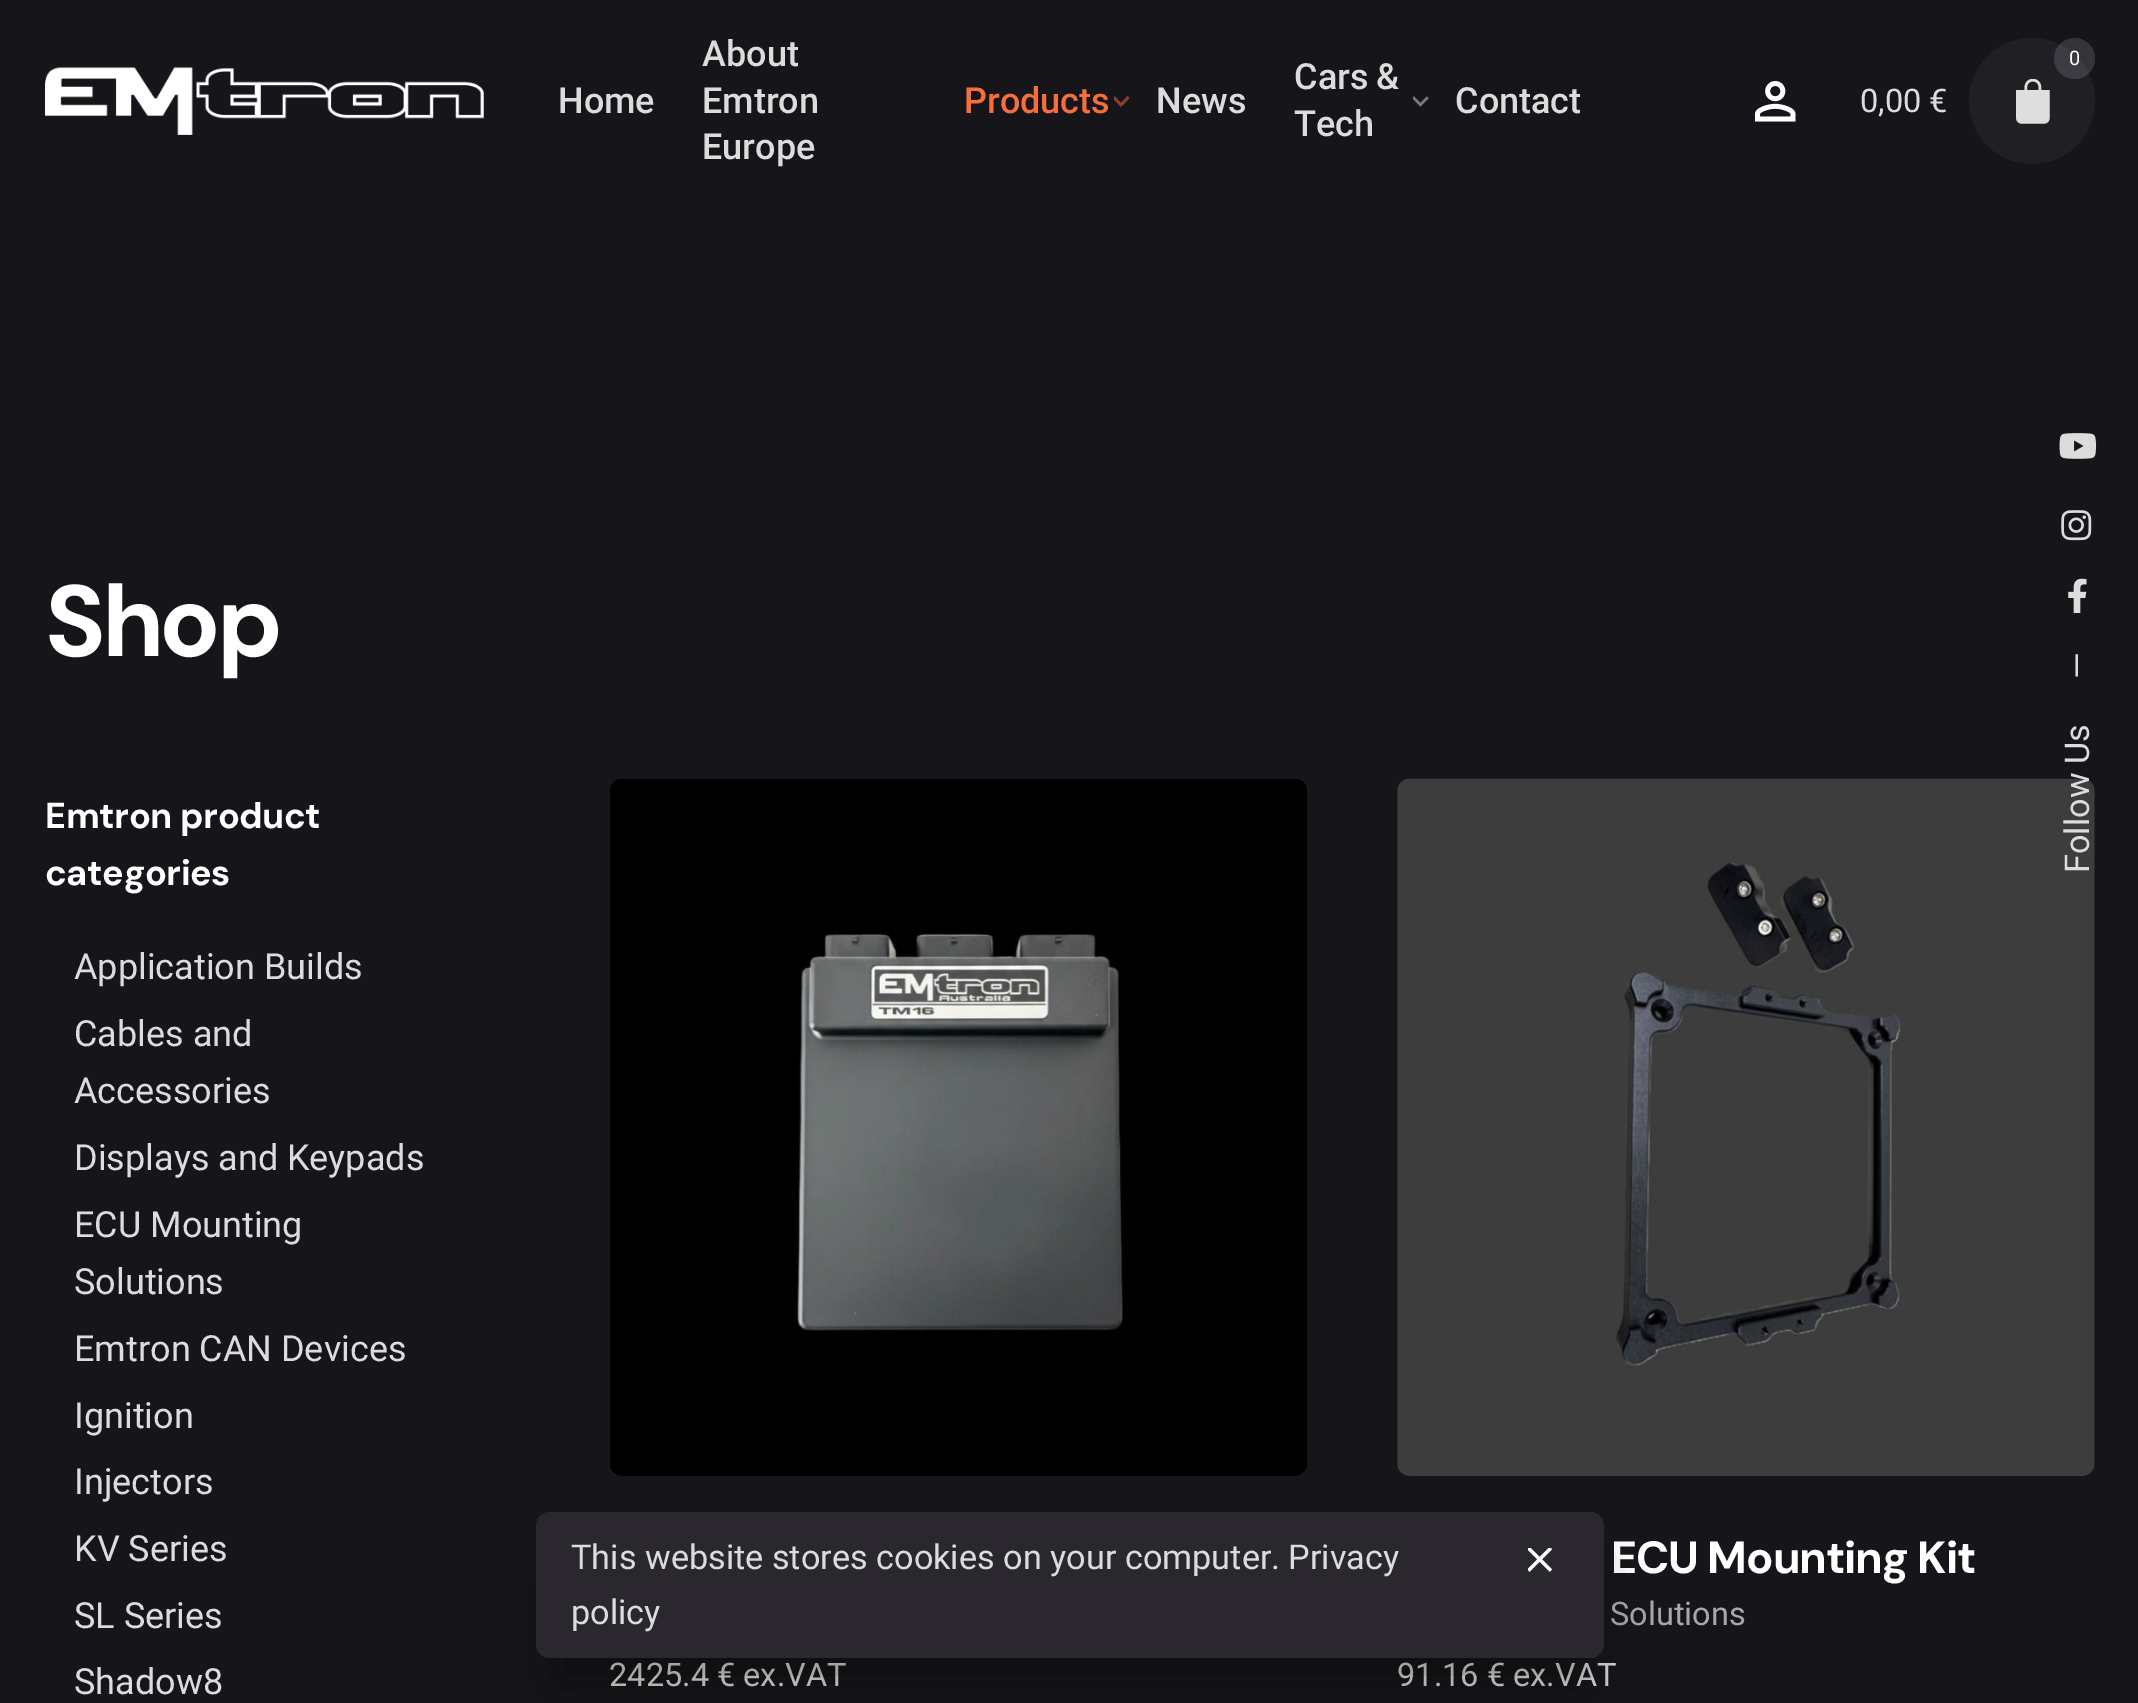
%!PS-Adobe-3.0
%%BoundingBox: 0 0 2138 1703
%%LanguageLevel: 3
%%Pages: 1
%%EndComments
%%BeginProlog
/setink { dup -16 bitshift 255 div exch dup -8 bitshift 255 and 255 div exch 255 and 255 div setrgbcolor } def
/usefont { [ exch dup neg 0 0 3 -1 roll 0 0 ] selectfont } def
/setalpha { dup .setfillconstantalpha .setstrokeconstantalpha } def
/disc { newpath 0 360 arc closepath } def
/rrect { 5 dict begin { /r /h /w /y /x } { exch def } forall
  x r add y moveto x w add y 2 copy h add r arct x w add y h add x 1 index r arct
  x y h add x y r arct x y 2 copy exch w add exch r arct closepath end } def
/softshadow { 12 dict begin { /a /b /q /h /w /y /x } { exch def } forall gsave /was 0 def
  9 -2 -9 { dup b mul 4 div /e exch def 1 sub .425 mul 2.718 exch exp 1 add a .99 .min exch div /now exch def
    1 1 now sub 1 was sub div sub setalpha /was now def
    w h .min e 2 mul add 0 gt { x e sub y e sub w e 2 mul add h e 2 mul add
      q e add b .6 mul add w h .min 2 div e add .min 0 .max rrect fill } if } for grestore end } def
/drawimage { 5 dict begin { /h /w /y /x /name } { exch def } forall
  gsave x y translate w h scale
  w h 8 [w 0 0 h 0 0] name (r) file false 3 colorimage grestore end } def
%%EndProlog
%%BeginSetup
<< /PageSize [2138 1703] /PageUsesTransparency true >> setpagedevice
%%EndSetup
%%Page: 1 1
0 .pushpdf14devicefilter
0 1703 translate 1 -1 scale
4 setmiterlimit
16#161519 setink
0 0 2138 1703 rectfill
(img1.raw) 45 67 439 68 drawimage
/Roboto-Medium 36 usefont
16#DCDCDD setink
[
    [(Home) 558 113]
    [(About) 702 66]
    [(Emtron) 702 113]
    [(Europe) 702 159]
] { aload pop moveto show } forall
16#F56E3B setink
964 113 moveto (Products) show
gsave
1114 95 16 15 rectclip
16#86422A setink
1112.5 98 moveto 1114.5 96 lineto 1121 103 lineto 1127.5 96 lineto 1129.5 98 lineto 1121 107 lineto closepath fill
grestore
16#DCDCDD setink
1156 113 moveto (News) show
1294 89 moveto -1 0 32 (Cars &) widthshow
1294 136 moveto (Tech) show
(img2.raw) 1413 96 16 11 drawimage
1455 113 moveto (Contact) show
(img3.raw) 1755 81 41 41 drawimage
16#201F24 setink
2032 101 63 disc fill
(img4.raw) 2016 79 34 45 drawimage
0.25 setalpha
16#9690A2 setink
2074.5 58.5 20.5 disc fill
/Roboto-Regular 20 usefont
1 setalpha
16#FFFFFF setink
2069 65 moveto (0) show
/Roboto-Regular 32.5 usefont
16#DCDCDD setink
1860 112 moveto (0,00 €) show
/DMSans-Bold 101 usefont
16#FFFFFF setink
45 656 moveto -4.5 0 (Shop) ashow
/DMSans-Bold 36 usefont
45 828 moveto -0.4 0 (Emtron product) ashow
45 885 moveto -0.4 0 (categories) ashow
/Roboto-Regular 36 usefont
16#DCDCDD setink
[
    [(Application Builds) 74 979]
    [(Cables and) 74 1046]
    [(Accessories) 74 1103]
    [(Displays and Keypads) 74 1170]
    [(ECU Mounting) 74 1237]
    [(Solutions) 74 1294]
    [(Emtron CAN Devices) 74 1361]
    [(Ignition) 74 1428]
    [(Injectors) 74 1494]
    [(KV Series) 74 1561]
    [(SL Series) 74 1628]
    [(Shadow8) 74 1694]
] { aload pop moveto show } forall
(img5.raw) 610 779 697 697 drawimage
/Roboto-Regular 32.5 usefont
609 1686 moveto (2425.4 € ex.VAT) show
(img6.raw) 1397 778 698 698 drawimage
/DMSans-Bold 45 usefont
16#FFFFFF setink
1611 1573 moveto -1.1 0 (ECU Mounting Kit) ashow
/Roboto-Regular 32.5 usefont
16#A8A8AA setink
1610 1625 moveto (Solutions) show
16#DCDCDD setink
1397 1686 moveto (91.16 € ex.VAT) show
(img7.raw) 2059 433 38 26 drawimage
(img8.raw) 2061 510 31 31 drawimage
(img9.raw) 2068 578 19 35 drawimage
/Roboto-Regular 34.25 usefont
gsave 2089 679 translate -90 rotate 0 0 moveto (—) show grestore
gsave 2089 873 translate -90 rotate 0 0 moveto (Follow Us) show grestore
16#000000 setink
554 1575 1032 110 0 36 0.35 softshadow
16#2A272F setink
536 1512 1068 146 14 rrect fill
16#DCDCDD setink
[
    [(This website stores cookies on your computer.) 571 1569]
    [(Privacy) 1288 1569]
    [(policy) 571 1624]
] { aload pop moveto show } forall
(img10.raw) 1528 1548 25 24 drawimage
.poppdf14devicefilter showpage
%%EOF
